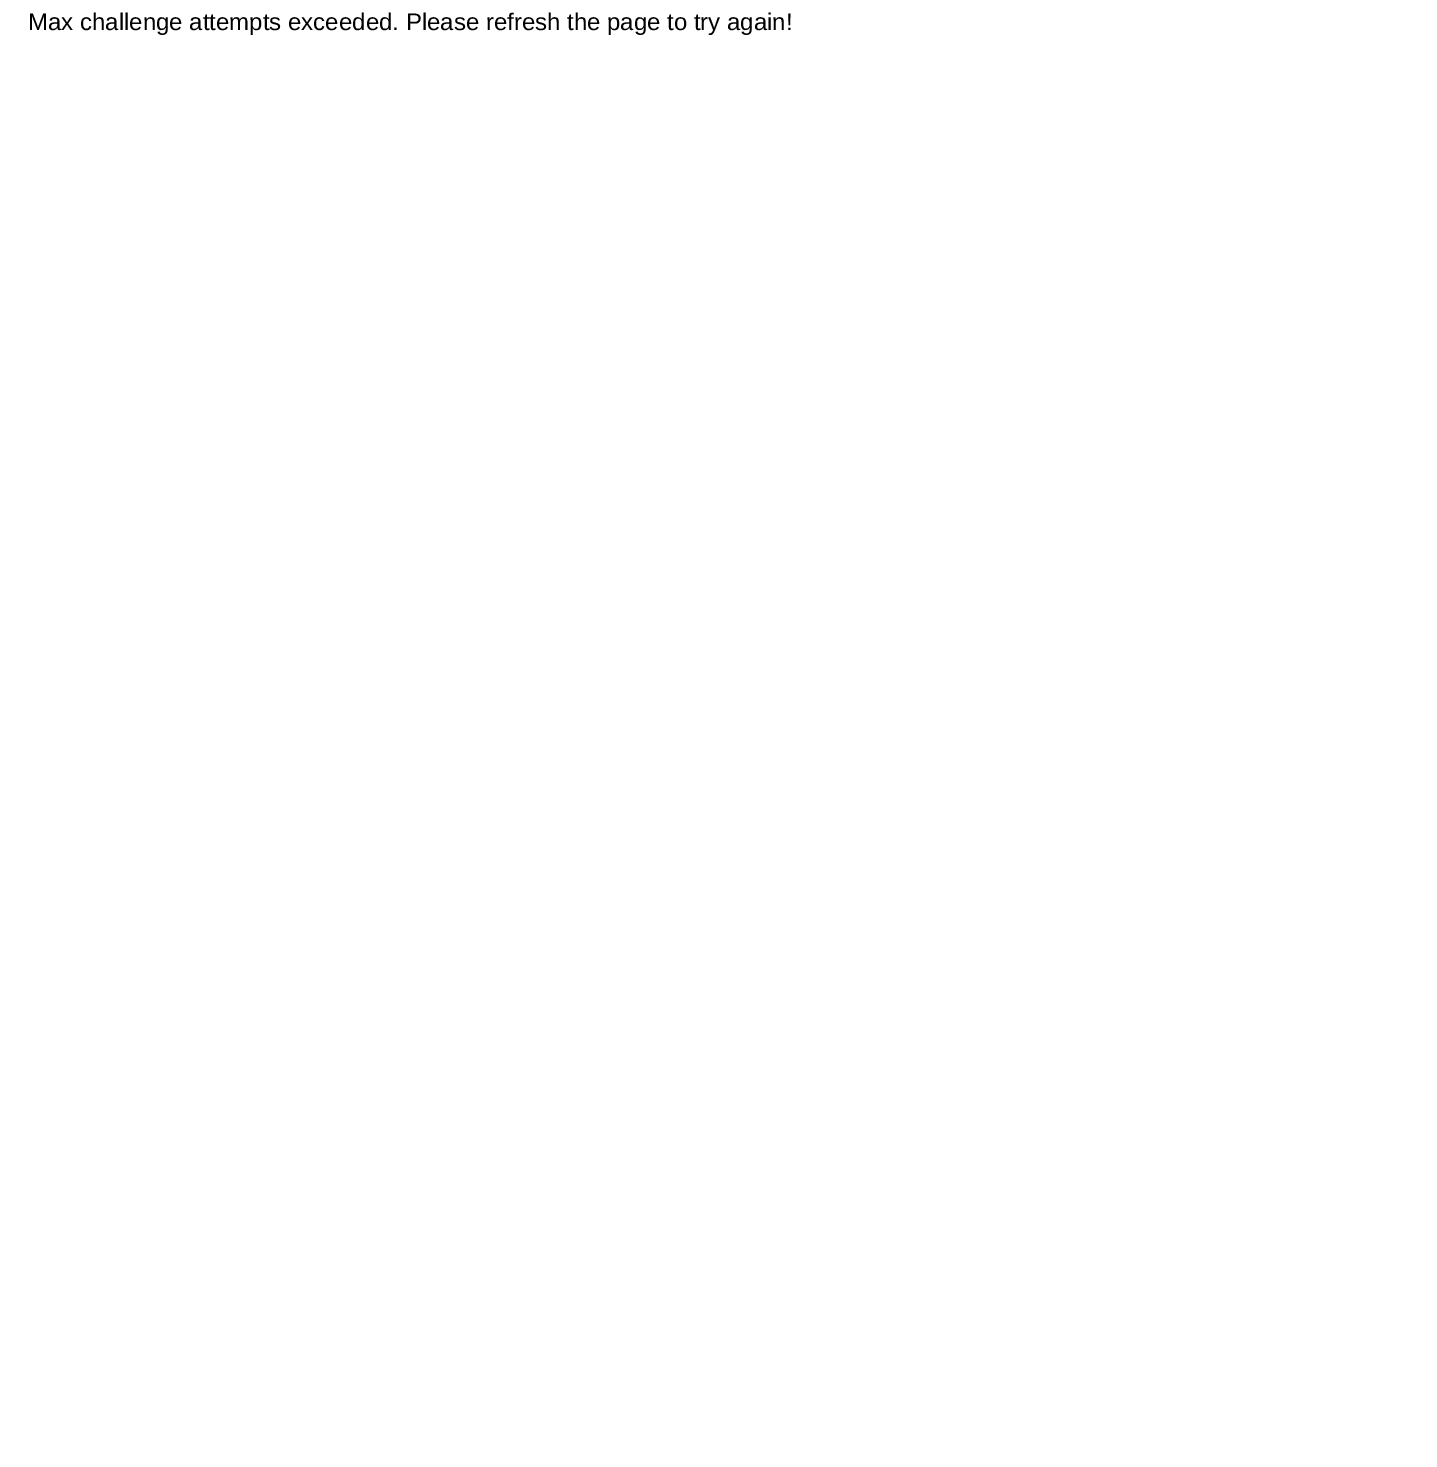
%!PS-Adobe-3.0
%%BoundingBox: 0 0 1437 1467
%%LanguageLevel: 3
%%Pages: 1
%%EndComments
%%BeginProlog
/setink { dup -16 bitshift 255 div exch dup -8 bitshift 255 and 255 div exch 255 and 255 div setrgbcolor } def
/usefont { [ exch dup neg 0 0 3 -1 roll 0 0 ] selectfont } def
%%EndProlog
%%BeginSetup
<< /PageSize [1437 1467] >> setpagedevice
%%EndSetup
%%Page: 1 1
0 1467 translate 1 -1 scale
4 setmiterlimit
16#FFFFFF setink
0 0 1437 1467 rectfill
/LiberationSans-Regular 24 usefont
16#000000 setink
28 30 moveto (Max challenge attempts exceeded. Please refresh the page to try again!) show
showpage
%%EOF
